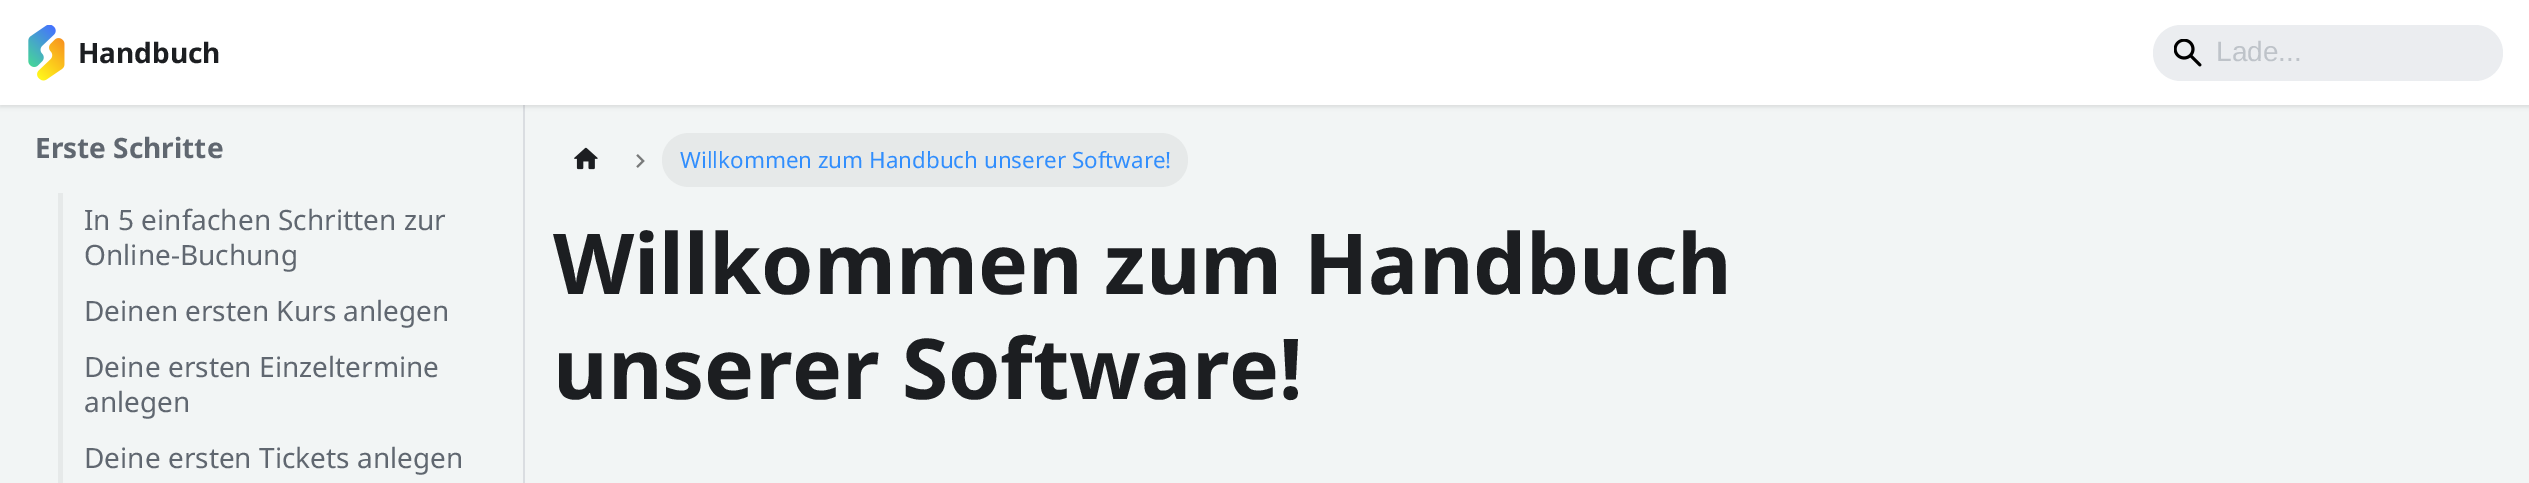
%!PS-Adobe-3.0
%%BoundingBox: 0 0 2529 483
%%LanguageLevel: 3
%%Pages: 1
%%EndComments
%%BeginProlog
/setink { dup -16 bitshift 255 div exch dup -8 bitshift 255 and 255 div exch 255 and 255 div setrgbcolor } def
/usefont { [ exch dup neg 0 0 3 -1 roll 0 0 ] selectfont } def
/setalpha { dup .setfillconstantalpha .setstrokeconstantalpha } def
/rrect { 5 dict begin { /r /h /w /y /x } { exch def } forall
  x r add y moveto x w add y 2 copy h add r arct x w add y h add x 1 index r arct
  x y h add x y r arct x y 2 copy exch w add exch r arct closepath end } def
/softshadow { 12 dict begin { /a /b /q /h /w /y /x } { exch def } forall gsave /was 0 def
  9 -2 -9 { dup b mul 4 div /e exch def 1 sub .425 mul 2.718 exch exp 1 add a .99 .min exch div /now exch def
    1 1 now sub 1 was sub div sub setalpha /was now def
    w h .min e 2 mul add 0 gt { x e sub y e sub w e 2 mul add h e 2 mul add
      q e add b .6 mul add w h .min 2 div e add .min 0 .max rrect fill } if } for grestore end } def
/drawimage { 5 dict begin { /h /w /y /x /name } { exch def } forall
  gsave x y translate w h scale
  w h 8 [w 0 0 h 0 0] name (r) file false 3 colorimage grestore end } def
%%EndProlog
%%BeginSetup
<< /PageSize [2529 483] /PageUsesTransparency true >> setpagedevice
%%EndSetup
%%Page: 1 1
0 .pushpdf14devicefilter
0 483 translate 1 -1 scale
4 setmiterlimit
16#F2F5F5 setink
0 0 2529 483 rectfill
16#DADDE1 setink
523 105 2 378 rectfill
16#000000 setink
0 2 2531 105 0 2 0.1 softshadow
16#FFFFFF setink
0 0 2529 105 rectfill
(img1.raw) 28 25 37 56 drawimage
/NotoSans-Bold 28 usefont
16#1C1E21 setink
78 63 moveto (Handbuch) show
16#EBEDF0 setink
2153 25 350 56 28 rrect fill
(img2.raw) 2174 39 28 28 drawimage
/LiberationSans-Regular 28 usefont
16#BEC3C9 setink
2216 61 moveto (Lade...) show
/NotoSans-Bold 28 usefont
16#606770 setink
35 158 moveto (Erste Schritte) show
16#E6E9E9 setink
58 193 5 290 rectfill
/NotoSans-Regular 28 usefont
16#606770 setink
[
    [(In 5 einfachen Schritten zur) 84 230]
    [(Online-Buchung) 84 265]
    [(Deinen ersten Kurs anlegen) 84 321]
    [(Deine ersten Einzeltermine) 84 377]
    [(anlegen) 84 412]
    [(Deine ersten Tickets anlegen) 84 468]
] { aload pop moveto show } forall
(img3.raw) 574 147 24 23 drawimage
(img4.raw) 636 154 9 14 drawimage
16#E6E9E9 setink
662 133 526 54 27 rrect fill
/NotoSans-Regular 22.4 usefont
16#318EFD setink
680 168 moveto (Willkommen zum Handbuch unserer Software!) show
/NotoSans-Bold 84 usefont
16#1C1E21 setink
553 294 moveto (Willkommen zum Handbuch) show
553 399 moveto (unserer Software!) show
.poppdf14devicefilter showpage
%%EOF
